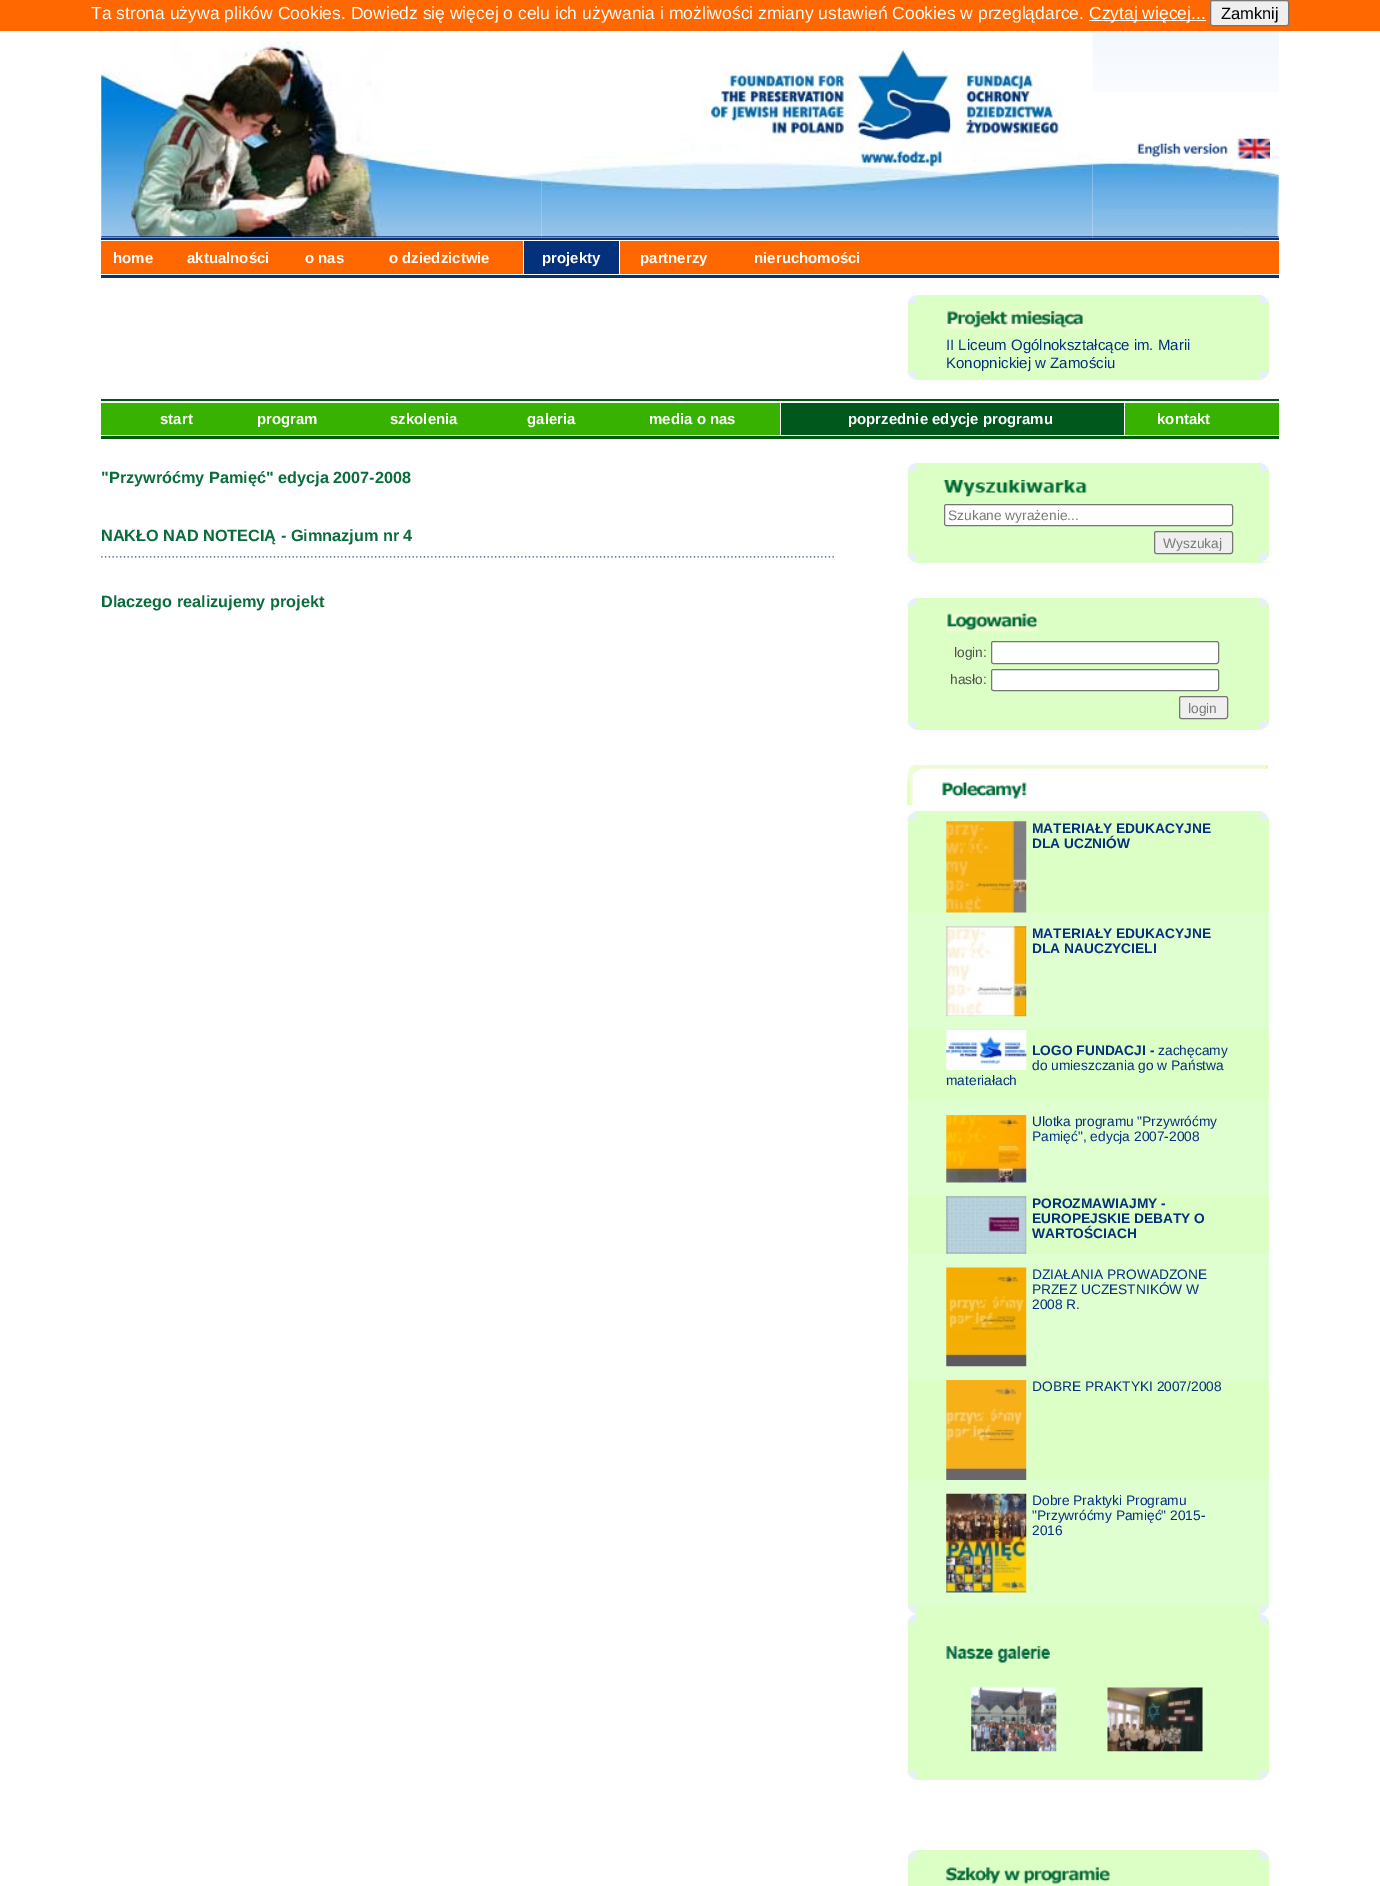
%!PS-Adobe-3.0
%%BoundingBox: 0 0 1380 1886
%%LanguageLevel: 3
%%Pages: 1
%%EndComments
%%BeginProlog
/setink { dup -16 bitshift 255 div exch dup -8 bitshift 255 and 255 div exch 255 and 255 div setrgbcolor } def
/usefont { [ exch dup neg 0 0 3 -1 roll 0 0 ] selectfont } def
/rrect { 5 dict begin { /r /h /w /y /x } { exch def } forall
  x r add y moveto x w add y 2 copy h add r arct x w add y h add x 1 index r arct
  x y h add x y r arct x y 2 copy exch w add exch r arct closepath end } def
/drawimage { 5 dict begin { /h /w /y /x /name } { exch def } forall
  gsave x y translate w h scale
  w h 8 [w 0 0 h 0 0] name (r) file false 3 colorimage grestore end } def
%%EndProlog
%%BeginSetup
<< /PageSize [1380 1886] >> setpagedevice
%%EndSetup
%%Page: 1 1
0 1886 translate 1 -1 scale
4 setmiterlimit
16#FFFFFF setink
0 0 1380 1886 rectfill
16#FF6700 setink
0 0 1380 31 rectfill
/LiberationSans-Regular 17.5 usefont
16#FFFFFF setink
91 19 moveto (Ta strona używa plików Cookies. Dowiedz się więcej o celu ich używania i możliwości zmiany ustawień Cookies w przeglądarce.) show
1089 20 117 1 rectfill
1089 19 moveto (Czytaj więcej...) show
16#EFEFEF setink
1210.5 0.5 78 25 2 rrect gsave fill grestore
16#767676 setink
stroke
/LiberationSans-Regular 16.5 usefont
16#000000 setink
1221 19 moveto (Zamknij) show
(img1.raw) 101 31 441 207 drawimage
(img2.raw) 541 49 552 189 drawimage
(img3.raw) 1092 31 187 61 drawimage
(img4.raw) 1137 138 133 21 drawimage
(img5.raw) 1270 154 9 5 drawimage
(img6.raw) 1092 158 187 80 drawimage
16#03317C setink
101 238 1178 2 rectfill
16#FF6700 setink
101 241 1178 33 rectfill
/LiberationSans-Bold 15 usefont
16#FFFFFF setink
[
    [(home) 113 263]
    [(aktualności) 187 263]
    [(o nas) 305 263]
    [(o dziedzictwie) 389 263]
] { aload pop moveto show } forall
[
    [524 241 95 33 16#03317B]
    [619 241 1 33 16#FFFFFF]
    [523 241 1 33 16#FFFFFF]
] { aload pop setink rectfill } forall
[
    [(projekty) 542 263]
    [(partnerzy) 640 263]
    [(nieruchomości) 754 263]
] { aload pop moveto show } forall
16#03317C setink
101 275 1178 3 rectfill
16#DBFFC4 setink
908 295 361 85 rectfill
(img7.raw) 907 295 10 9 drawimage
(img8.raw) 1260 295 9 9 drawimage
(img9.raw) 946 311 137 18 drawimage
/LiberationSans-Regular 15 usefont
16#03317B setink
946 350 moveto (II Liceum Ogólnokształcące im. Marii) show
946 368 moveto (Konopnickiej w Zamościu) show
(img10.raw) 907 371 10 9 drawimage
(img11.raw) 1260 371 9 9 drawimage
16#005810 setink
101 399 1178 2 rectfill
16#38B200 setink
101 403 1178 32 rectfill
/LiberationSans-Bold 15 usefont
16#FFFFFF setink
[
    [(start) 160 424]
    [(program) 257 424]
    [(szkolenia) 390 424]
    [(galeria) 527 424]
    [(media o nas) 649 424]
] { aload pop moveto show } forall
[
    [781 403 343 32 16#00581D]
    [1124 403 1 32 16#FFFFFF]
    [780 403 1 32 16#FFFFFF]
] { aload pop setink rectfill } forall
848 424 moveto (poprzednie edycje programu) show
1157 424 moveto (kontakt) show
16#005810 setink
101 436 1178 3 rectfill
/LiberationSans-Bold 16.25 usefont
16#0A6C3B setink
101 483 moveto ("Przywróćmy Pamięć" edycja 2007-2008) show
101 541 moveto (NAKŁO NAD NOTECIĄ - Gimnazjum nr 4) show
(img12.raw) 101 556 733 2 drawimage
101 607 moveto (Dlaczego realizujemy projekt) show
16#DBFFC4 setink
908 463 361 100 rectfill
(img13.raw) 907 462 10 10 drawimage
(img14.raw) 1260 462 9 10 drawimage
(img15.raw) 943 480 144 17 drawimage
16#FFFFFF setink
944.5 504.5 288 21 2 rrect gsave fill grestore
16#767676 setink
stroke
/LiberationSans-Regular 13.75 usefont
16#7A7979 setink
948 520 moveto (Szukane wyrażenie...) show
16#EFEFEF setink
1154.5 531.5 78 22 2 rrect gsave fill grestore
16#767676 setink
stroke
16#7A7979 setink
1163 548 moveto (Wyszukaj) show
(img16.raw) 907 553 10 10 drawimage
(img17.raw) 1260 553 9 10 drawimage
16#DBFFC4 setink
908 598 361 132 rectfill
(img13.raw) 907 597 10 10 drawimage
(img14.raw) 1260 597 9 10 drawimage
(img18.raw) 946 613 92 19 drawimage
16#505050 setink
954 657 moveto (login:) show
16#FFFFFF setink
991.5 641.5 227 22 2 rrect gsave fill grestore
16#767676 setink
stroke
16#505050 setink
950 684 moveto (hasło:) show
16#FFFFFF setink
991.5 669.5 227 21 2 rrect gsave fill grestore
16#767676 setink
stroke
16#EFEFEF setink
1179.5 696.5 48 22 2 rrect gsave fill grestore
16#767676 setink
stroke
16#7A7979 setink
1188 713 moveto (login) show
(img10.raw) 907 721 10 9 drawimage
(img11.raw) 1260 721 9 9 drawimage
(img19.raw) 907 765 361 40 drawimage
16#DBFFC4 setink
908 811 361 969 rectfill
(img20.raw) 907 811 10 9 drawimage
(img21.raw) 1260 811 9 9 drawimage
(img22.raw) 946 821 81 92 drawimage
/LiberationSans-Bold 13.75 usefont
16#03317B setink
1032 833 moveto (MATERIAŁY EDUKACYJNE) show
1032 848 moveto (DLA UCZNIÓW) show
16#E0FFD0 setink
908 913 361 116 rectfill
(img23.raw) 946 926 81 91 drawimage
16#03317B setink
1032 938 moveto (MATERIAŁY EDUKACYJNE) show
1032 953 moveto (DLA NAUCZYCIELI) show
(img24.raw) 946 1030 81 40 drawimage
1032 1055 moveto (LOGO FUNDACJI -) show
/LiberationSans-Regular 13.75 usefont
[
    [(zachęcamy) 1158 1055]
    [(do umieszczania go w Państwa) 1032 1070]
    [(materiałach) 946 1085]
] { aload pop moveto show } forall
16#E0FFD0 setink
908 1101 361 94 rectfill
(img25.raw) 946 1115 81 68 drawimage
16#03317B setink
1032 1126 moveto (Ulotka programu "Przywróćmy) show
1032 1141 moveto (Pamięć", edycja 2007-2008) show
(img26.raw) 946 1196 81 58 drawimage
/LiberationSans-Bold 13.75 usefont
[
    [(POROZMAWIAJMY -) 1032 1208]
    [(EUROPEJSKIE DEBATY O) 1032 1223]
    [(WARTOŚCIACH) 1032 1238]
] { aload pop moveto show } forall
16#E0FFD0 setink
908 1254 361 125 rectfill
(img27.raw) 946 1267 81 100 drawimage
/LiberationSans-Regular 13.75 usefont
16#03317B setink
[
    [(DZIAŁANIA PROWADZONE) 1032 1279]
    [(PRZEZ UCZESTNIKÓW W) 1032 1294]
    [(2008 R.) 1032 1309]
] { aload pop moveto show } forall
(img28.raw) 946 1380 81 100 drawimage
1032 1391 moveto (DOBRE PRAKTYKI 2007/2008) show
16#E0FFD0 setink
908 1480 361 125 rectfill
(img29.raw) 946 1493 81 100 drawimage
16#03317B setink
[
    [(Dobre Praktyki Programu) 1032 1505]
    [("Przywróćmy Pamięć" 2015-) 1032 1520]
    [(2016) 1032 1535]
] { aload pop moveto show } forall
(img30.raw) 907 1605 10 9 drawimage
(img31.raw) 1260 1605 9 9 drawimage
(img32.raw) 907 1614 10 9 drawimage
(img33.raw) 1260 1613 9 10 drawimage
(img34.raw) 946 1646 104 17 drawimage
(img35.raw) 971 1687 86 65 drawimage
(img36.raw) 1107 1687 96 65 drawimage
(img10.raw) 907 1771 10 9 drawimage
(img11.raw) 1260 1771 9 9 drawimage
16#DBFFC4 setink
908 1850 361 36 rectfill
(img7.raw) 907 1850 10 9 drawimage
(img8.raw) 1260 1850 9 9 drawimage
(img37.raw) 946 1867 164 17 drawimage
showpage
%%EOF
